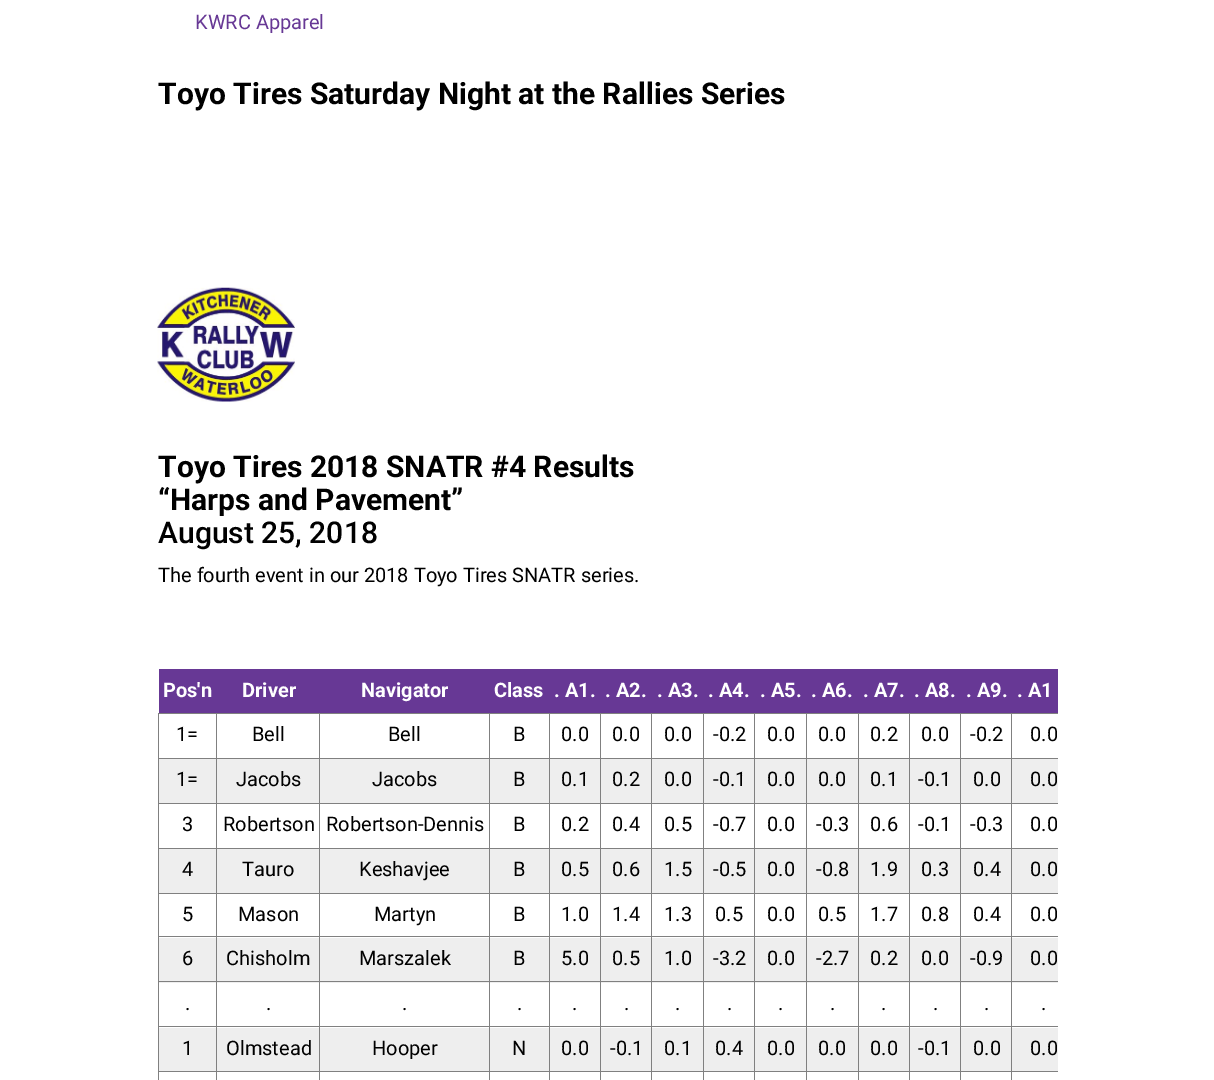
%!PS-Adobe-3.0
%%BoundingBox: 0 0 1214 1080
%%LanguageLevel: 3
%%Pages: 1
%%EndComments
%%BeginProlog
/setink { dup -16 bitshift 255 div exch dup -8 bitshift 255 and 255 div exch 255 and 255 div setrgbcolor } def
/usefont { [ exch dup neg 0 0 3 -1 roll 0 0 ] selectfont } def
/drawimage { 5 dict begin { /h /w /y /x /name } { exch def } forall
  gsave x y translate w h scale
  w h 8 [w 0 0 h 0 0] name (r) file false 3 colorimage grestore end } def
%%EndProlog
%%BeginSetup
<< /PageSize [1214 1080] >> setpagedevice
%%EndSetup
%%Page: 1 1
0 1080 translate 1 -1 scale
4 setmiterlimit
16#FFFFFF setink
0 0 1214 1080 rectfill
/Roboto-Regular 20 usefont
16#673895 setink
195 29 moveto (KWRC Apparel) show
/Roboto-Bold 30 usefont
16#000000 setink
158 104 moveto (Toyo Tires Saturday Night at the Rallies Series) show
(img1.raw) 157 287 138 115 drawimage
158 477 moveto (Toyo Tires 2018 SNATR #4 Results) show
158 510 moveto (“Harps and Pavement”) show
/Roboto-Medium 30 usefont
158 543 moveto (August 25, 2018) show
/Roboto-Regular 20 usefont
158 582 moveto (The fourth event in our 2018 Toyo Tires SNATR series.) show
16#673895 setink
159 669 899 44 rectfill
/Roboto-Bold 20 usefont
16#FFFFFF setink
[
    [(Pos'n) 163 697]
    [(Driver) 242 697]
    [(Navigator) 361 697]
    [(Class) 494 697]
    [(. A1.) 554 697]
    [(. A2.) 605 697]
    [(. A3.) 657 697]
    [(. A4.) 708 697]
    [(. A5.) 760 697]
    [(. A6.) 811 697]
    [(. A7.) 863 697]
    [(. A8.) 914 697]
    [(. A9.) 966 697]
    [(. A1) 1017 697]
] { aload pop moveto show } forall
[
    [1011 713 47 1 16#808080]
    [1011 758 47 1 16#808080]
    [159 759 899 44 16#EEEEEE]
    [1011 803 47 1 16#808080]
    [1011 848 47 1 16#808080]
    [159 849 899 44 16#EEEEEE]
    [1011 893 47 1 16#808080]
    [1011 936 47 1 16#808080]
    [159 938 899 45 16#EEEEEE]
    [1011 981 47 1 16#808080]
    [1011 1026 47 1 16#808080]
    [159 1028 899 43 16#EEEEEE]
    [1011 1071 47 1 16#808080]
    [1011 1071 1 9 16#808080]
    [960 1071 53 1 16#808080]
    [1011 1026 1 47 16#808080]
    [960 1026 53 1 16#808080]
    [1011 981 1 47 16#808080]
    [960 981 53 1 16#808080]
    [1011 936 1 47 16#808080]
    [960 936 53 1 16#808080]
    [1011 893 1 45 16#808080]
    [960 893 53 1 16#808080]
    [1011 848 1 46 16#808080]
    [960 848 53 1 16#808080]
    [1011 803 1 46 16#808080]
    [960 803 53 1 16#808080]
    [1011 758 1 46 16#808080]
    [960 758 53 1 16#808080]
    [1011 713 1 46 16#808080]
    [960 713 53 1 16#808080]
    [960 1071 1 9 16#808080]
    [909 1071 52 1 16#808080]
    [960 1026 1 47 16#808080]
    [909 1026 52 1 16#808080]
    [960 981 1 47 16#808080]
    [909 981 52 1 16#808080]
    [960 936 1 47 16#808080]
    [909 936 52 1 16#808080]
    [960 893 1 45 16#808080]
    [909 893 52 1 16#808080]
    [960 848 1 46 16#808080]
    [909 848 52 1 16#808080]
    [960 803 1 46 16#808080]
    [909 803 52 1 16#808080]
    [960 758 1 46 16#808080]
    [909 758 52 1 16#808080]
    [960 713 1 46 16#808080]
    [909 713 52 1 16#808080]
    [909 1071 1 9 16#808080]
    [858 1071 52 1 16#808080]
    [909 1026 1 47 16#808080]
    [858 1026 52 1 16#808080]
    [909 981 1 47 16#808080]
    [858 981 52 1 16#808080]
    [909 936 1 47 16#808080]
    [858 936 52 1 16#808080]
    [909 893 1 45 16#808080]
    [858 893 52 1 16#808080]
    [909 848 1 46 16#808080]
    [858 848 52 1 16#808080]
    [909 803 1 46 16#808080]
    [858 803 52 1 16#808080]
    [909 758 1 46 16#808080]
    [858 758 52 1 16#808080]
    [909 713 1 46 16#808080]
    [858 713 52 1 16#808080]
    [858 1071 1 9 16#808080]
    [806 1071 53 1 16#808080]
    [858 1026 1 47 16#808080]
    [806 1026 53 1 16#808080]
    [858 981 1 47 16#808080]
    [806 981 53 1 16#808080]
    [858 936 1 47 16#808080]
    [806 936 53 1 16#808080]
    [858 893 1 45 16#808080]
    [806 893 53 1 16#808080]
    [858 848 1 46 16#808080]
    [806 848 53 1 16#808080]
    [858 803 1 46 16#808080]
    [806 803 53 1 16#808080]
    [858 758 1 46 16#808080]
    [806 758 53 1 16#808080]
    [858 713 1 46 16#808080]
    [806 713 53 1 16#808080]
    [806 1071 1 9 16#808080]
    [754 1071 54 1 16#808080]
    [806 1026 1 47 16#808080]
    [754 1026 54 1 16#808080]
    [806 981 1 47 16#808080]
    [754 981 54 1 16#808080]
    [806 936 1 47 16#808080]
    [754 936 54 1 16#808080]
    [806 893 1 45 16#808080]
    [754 893 54 1 16#808080]
    [806 848 1 46 16#808080]
    [754 848 54 1 16#808080]
    [806 803 1 46 16#808080]
    [754 803 54 1 16#808080]
    [806 758 1 46 16#808080]
    [754 758 54 1 16#808080]
    [806 713 1 46 16#808080]
    [754 713 54 1 16#808080]
    [754 1071 1 9 16#808080]
    [703 1071 52 1 16#808080]
    [754 1026 1 47 16#808080]
    [703 1026 52 1 16#808080]
    [754 981 1 47 16#808080]
    [703 981 52 1 16#808080]
    [754 936 1 47 16#808080]
    [703 936 52 1 16#808080]
    [754 893 1 45 16#808080]
    [703 893 52 1 16#808080]
    [754 848 1 46 16#808080]
    [703 848 52 1 16#808080]
    [754 803 1 46 16#808080]
    [703 803 52 1 16#808080]
    [754 758 1 46 16#808080]
    [703 758 52 1 16#808080]
    [754 713 1 46 16#808080]
    [703 713 52 1 16#808080]
    [703 1071 1 9 16#808080]
    [651 1071 53 1 16#808080]
    [703 1026 1 47 16#808080]
    [651 1026 53 1 16#808080]
    [703 981 1 47 16#808080]
    [651 981 53 1 16#808080]
    [703 936 1 47 16#808080]
    [651 936 53 1 16#808080]
    [703 893 1 45 16#808080]
    [651 893 53 1 16#808080]
    [703 848 1 46 16#808080]
    [651 848 53 1 16#808080]
    [703 803 1 46 16#808080]
    [651 803 53 1 16#808080]
    [703 758 1 46 16#808080]
    [651 758 53 1 16#808080]
    [703 713 1 46 16#808080]
    [651 713 53 1 16#808080]
    [651 1071 1 9 16#808080]
    [600 1071 53 1 16#808080]
    [651 1026 1 47 16#808080]
    [600 1026 53 1 16#808080]
    [651 981 1 47 16#808080]
    [600 981 53 1 16#808080]
    [651 936 1 47 16#808080]
    [600 936 53 1 16#808080]
    [651 893 1 45 16#808080]
    [600 893 53 1 16#808080]
    [651 848 1 46 16#808080]
    [600 848 53 1 16#808080]
    [651 803 1 46 16#808080]
    [600 803 53 1 16#808080]
    [651 758 1 46 16#808080]
    [600 758 53 1 16#808080]
    [651 713 1 46 16#808080]
    [600 713 53 1 16#808080]
    [600 1071 1 9 16#808080]
    [549 1071 52 1 16#808080]
    [600 1026 1 47 16#808080]
    [549 1026 52 1 16#808080]
    [600 981 1 47 16#808080]
    [549 981 52 1 16#808080]
    [600 936 1 47 16#808080]
    [549 936 52 1 16#808080]
    [600 893 1 45 16#808080]
    [549 893 52 1 16#808080]
    [600 848 1 46 16#808080]
    [549 848 52 1 16#808080]
    [600 803 1 46 16#808080]
    [549 803 52 1 16#808080]
    [600 758 1 46 16#808080]
    [549 758 52 1 16#808080]
    [600 713 1 46 16#808080]
    [549 713 52 1 16#808080]
    [549 1071 1 9 16#808080]
    [489 1071 61 1 16#808080]
    [549 1026 1 47 16#808080]
    [489 1026 61 1 16#808080]
    [549 981 1 47 16#808080]
    [489 981 61 1 16#808080]
    [549 936 1 47 16#808080]
    [489 936 61 1 16#808080]
    [549 893 1 45 16#808080]
    [489 893 61 1 16#808080]
    [549 848 1 46 16#808080]
    [489 848 61 1 16#808080]
    [549 803 1 46 16#808080]
    [489 803 61 1 16#808080]
    [549 758 1 46 16#808080]
    [489 758 61 1 16#808080]
    [549 713 1 46 16#808080]
    [489 713 61 1 16#808080]
    [489 1071 1 9 16#808080]
    [319 1071 171 1 16#808080]
    [489 1026 1 47 16#808080]
    [319 1026 171 1 16#808080]
    [489 981 1 47 16#808080]
    [319 981 171 1 16#808080]
    [489 936 1 47 16#808080]
    [319 936 171 1 16#808080]
    [489 893 1 45 16#808080]
    [319 893 171 1 16#808080]
    [489 848 1 46 16#808080]
    [319 848 171 1 16#808080]
    [489 803 1 46 16#808080]
    [319 803 171 1 16#808080]
    [489 758 1 46 16#808080]
    [319 758 171 1 16#808080]
    [489 713 1 46 16#808080]
    [319 713 171 1 16#808080]
    [319 1071 1 9 16#808080]
    [216 1071 104 1 16#808080]
    [319 1026 1 47 16#808080]
    [216 1026 104 1 16#808080]
    [319 981 1 47 16#808080]
    [216 981 104 1 16#808080]
    [319 936 1 47 16#808080]
    [216 936 104 1 16#808080]
    [319 893 1 45 16#808080]
    [216 893 104 1 16#808080]
    [319 848 1 46 16#808080]
    [216 848 104 1 16#808080]
    [319 803 1 46 16#808080]
    [216 803 104 1 16#808080]
    [319 758 1 46 16#808080]
    [216 758 104 1 16#808080]
    [319 713 1 46 16#808080]
    [216 713 104 1 16#808080]
    [216 1071 1 9 16#808080]
    [158 1071 60 1 16#808080]
    [216 1026 1 47 16#808080]
    [158 1026 60 1 16#808080]
    [216 981 1 47 16#808080]
    [158 981 60 1 16#808080]
    [216 936 1 47 16#808080]
    [158 936 60 1 16#808080]
    [216 893 1 45 16#808080]
    [158 893 60 1 16#808080]
    [216 848 1 46 16#808080]
    [158 848 60 1 16#808080]
    [216 803 1 46 16#808080]
    [158 803 60 1 16#808080]
    [216 758 1 46 16#808080]
    [158 758 60 1 16#808080]
    [216 713 1 46 16#808080]
    [158 713 60 1 16#808080]
    [158 1071 1 9 16#808080]
    [158 1026 1 47 16#808080]
    [158 981 1 47 16#808080]
    [158 936 1 47 16#808080]
    [158 893 1 45 16#808080]
    [158 848 1 46 16#808080]
    [158 803 1 46 16#808080]
    [158 758 1 46 16#808080]
    [158 713 1 46 16#808080]
] { aload pop setink rectfill } forall
/Roboto-Regular 20 usefont
16#000000 setink
[
    [(1=) 176 741]
    [(Bell) 252 741]
    [(Bell) 388 741]
    [(B) 513 741]
    [(0.0) 561 741]
    [(0.0) 612 741]
    [(0.0) 664 741]
    [(-0.2) 713 741]
    [(0.0) 767 741]
    [(0.0) 818 741]
    [(0.2) 870 741]
    [(0.0) 921 741]
    [(-0.2) 970 741]
    [(0.0) 1030 741]
    [(1=) 176 786]
    [(Jacobs) 236 786]
    [(Jacobs) 372 786]
    [(B) 513 786]
    [(0.1) 561 786]
    [(0.2) 612 786]
    [(0.0) 664 786]
    [(-0.1) 713 786]
    [(0.0) 767 786]
    [(0.0) 818 786]
    [(0.1) 870 786]
    [(-0.1) 918 786]
    [(0.0) 973 786]
    [(0.0) 1030 786]
    [(3) 182 831]
    [(Robertson) 223 831]
    [(Robertson-Dennis) 326 831]
    [(B) 513 831]
    [(0.2) 561 831]
    [(0.4) 612 831]
    [(0.5) 664 831]
    [(-0.7) 713 831]
    [(0.0) 767 831]
    [(-0.3) 816 831]
    [(0.6) 870 831]
    [(-0.1) 918 831]
    [(-0.3) 970 831]
    [(0.0) 1030 831]
    [(4) 182 876]
    [(Tauro) 242 876]
    [(Keshavjee) 359 876]
    [(B) 513 876]
    [(0.5) 561 876]
    [(0.6) 612 876]
    [(1.5) 664 876]
    [(-0.5) 713 876]
    [(0.0) 767 876]
    [(-0.8) 816 876]
    [(1.9) 870 876]
    [(0.3) 921 876]
    [(0.4) 973 876]
    [(0.0) 1030 876]
    [(5) 182 921]
    [(Mason) 238 921]
    [(Martyn) 374 921]
    [(B) 513 921]
    [(1.0) 561 921]
    [(1.4) 612 921]
    [(1.3) 664 921]
    [(0.5) 715 921]
    [(0.0) 767 921]
    [(0.5) 818 921]
    [(1.7) 870 921]
    [(0.8) 921 921]
    [(0.4) 973 921]
    [(0.0) 1030 921]
    [(6) 182 965]
    [(Chisholm) 226 965]
    [(Marszalek) 359 965]
    [(B) 513 965]
    [(5.0) 561 965]
    [(0.5) 612 965]
    [(1.0) 664 965]
    [(-3.2) 713 965]
    [(0.0) 767 965]
    [(-2.7) 816 965]
    [(0.2) 870 965]
    [(0.0) 921 965]
    [(-0.9) 970 965]
    [(0.0) 1030 965]
    [(.) 185 1010]
    [(.) 266 1010]
    [(.) 402 1010]
    [(.) 517 1010]
    [(.) 572 1010]
    [(.) 624 1010]
    [(.) 675 1010]
    [(.) 727 1010]
    [(.) 778 1010]
    [(.) 830 1010]
    [(.) 881 1010]
    [(.) 933 1010]
    [(.) 984 1010]
    [(.) 1041 1010]
    [(1) 182 1055]
    [(Olmstead) 226 1055]
    [(Hooper) 372 1055]
    [(N) 512 1055]
    [(0.0) 561 1055]
    [(-0.1) 610 1055]
    [(0.1) 664 1055]
    [(0.4) 715 1055]
    [(0.0) 767 1055]
    [(0.0) 818 1055]
    [(0.0) 870 1055]
    [(-0.1) 918 1055]
    [(0.0) 973 1055]
    [(0.0) 1030 1055]
] { aload pop moveto show } forall
showpage
%%EOF
